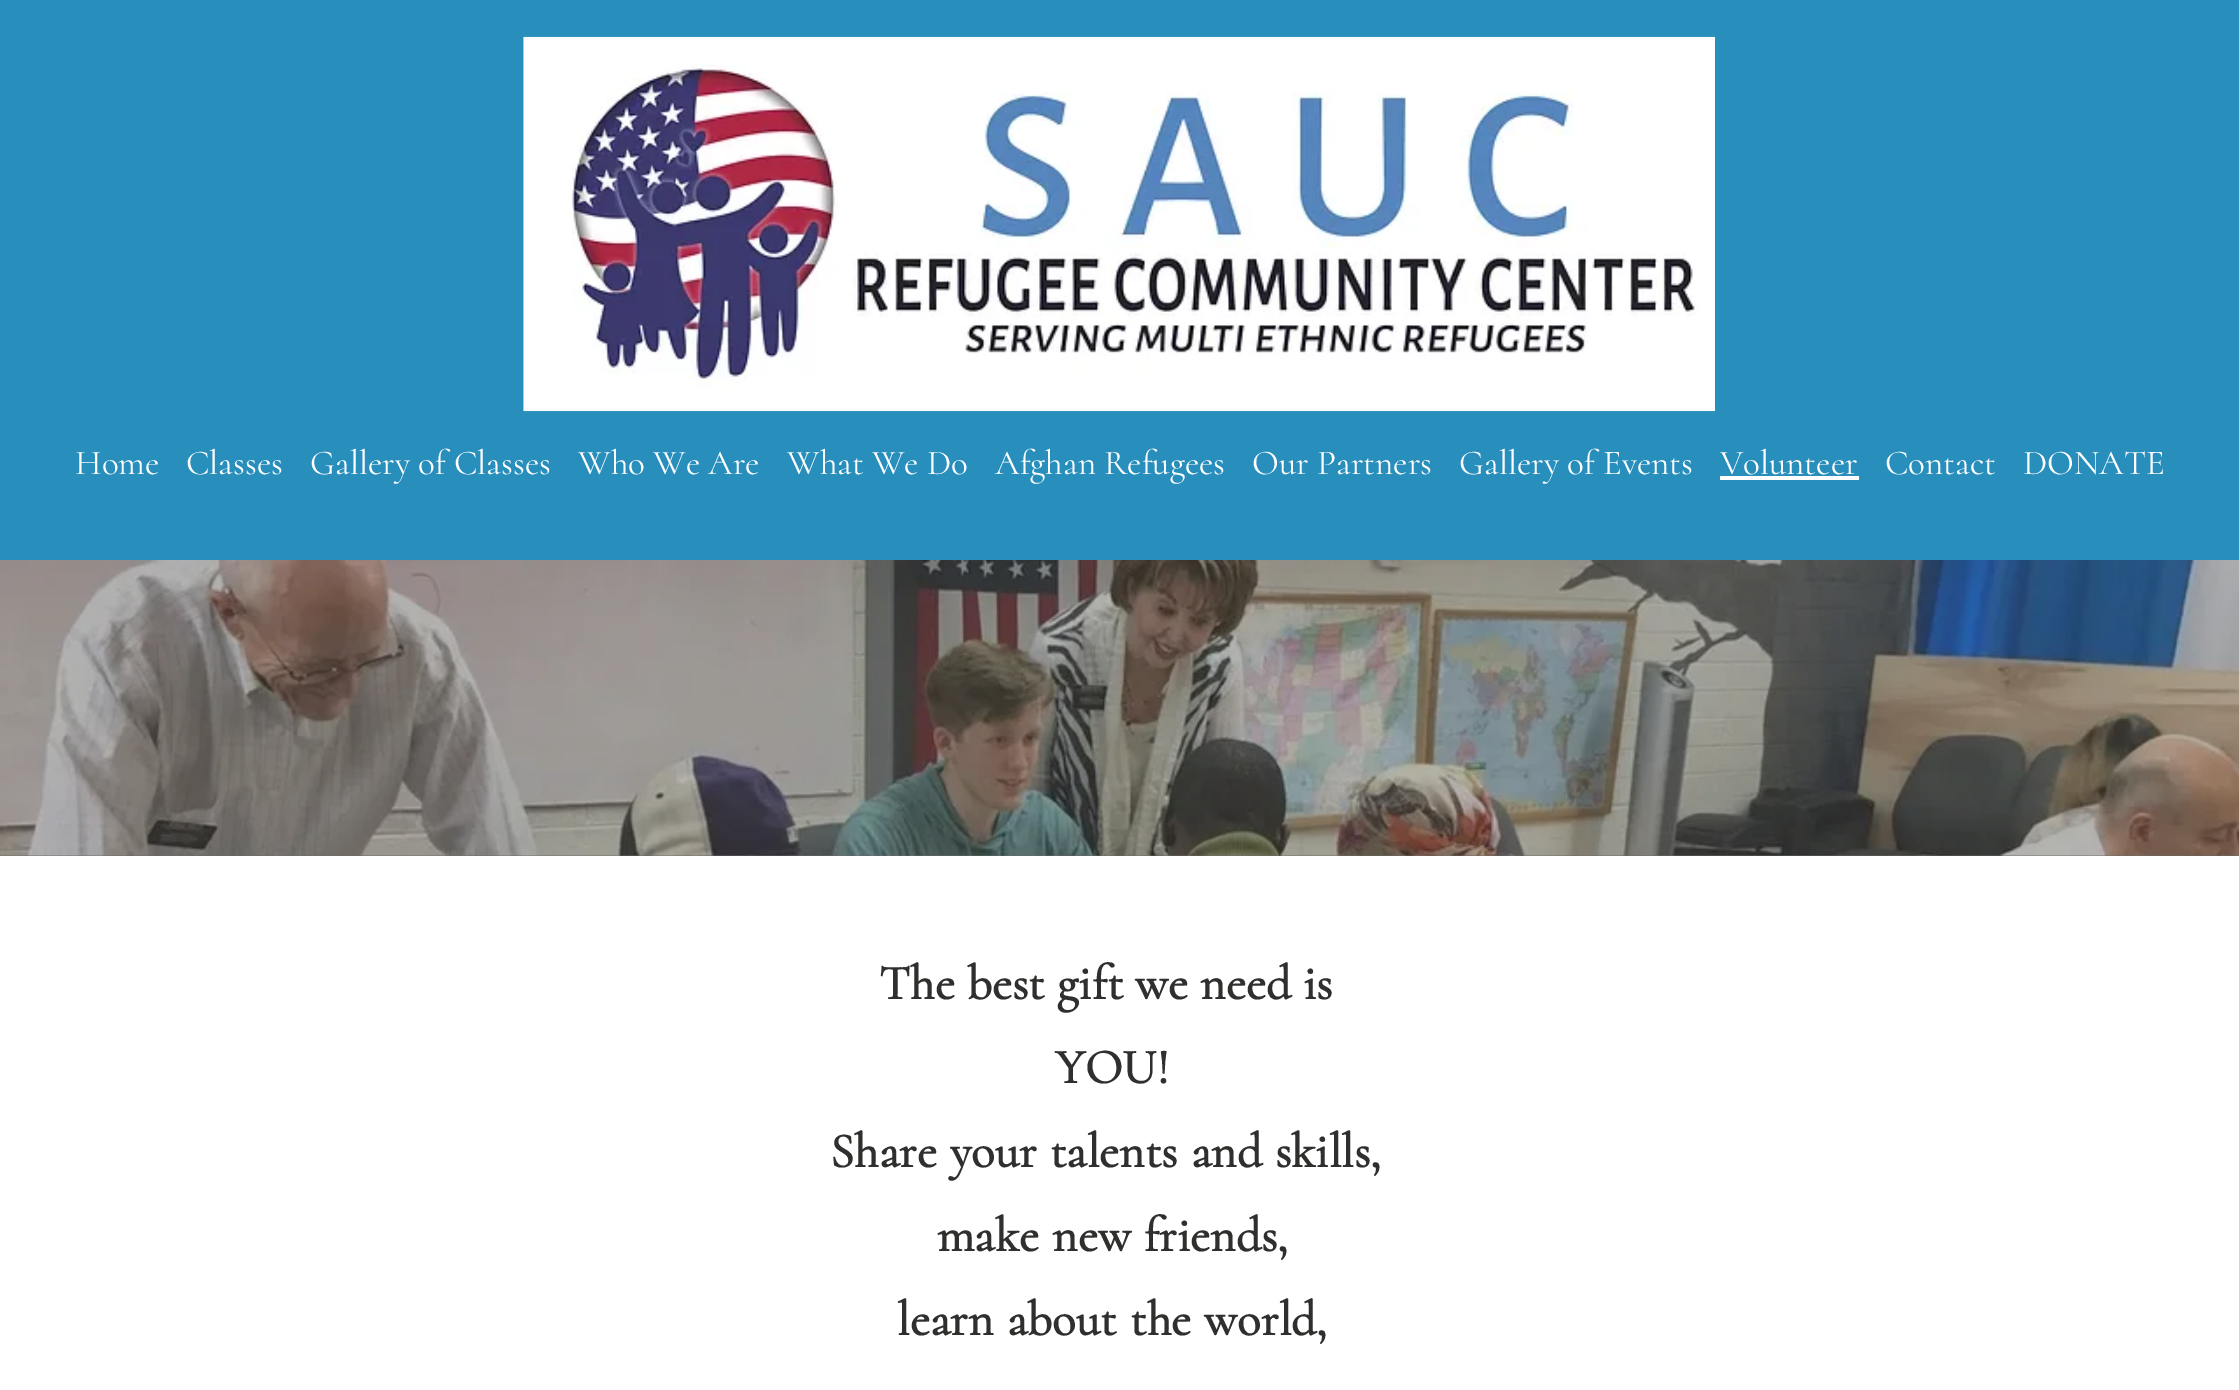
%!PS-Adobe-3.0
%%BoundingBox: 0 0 2239 1390
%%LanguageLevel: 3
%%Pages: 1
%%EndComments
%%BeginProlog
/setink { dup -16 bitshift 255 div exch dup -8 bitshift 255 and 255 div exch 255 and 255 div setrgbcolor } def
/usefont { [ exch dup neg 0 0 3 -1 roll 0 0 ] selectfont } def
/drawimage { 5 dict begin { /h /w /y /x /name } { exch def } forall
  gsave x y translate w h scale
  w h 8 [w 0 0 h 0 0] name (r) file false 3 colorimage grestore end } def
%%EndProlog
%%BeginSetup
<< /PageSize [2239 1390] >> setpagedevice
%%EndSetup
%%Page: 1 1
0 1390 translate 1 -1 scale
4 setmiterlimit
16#6C6C69 setink
0 0 2239 1390 rectfill
16#288FBD setink
0 0 2239 560 rectfill
(img1.raw) 523 36 1192 376 drawimage
/Cormorant-Regular 35 usefont
16#FFFFFF setink
[
    [(Home) 75 474]
    [(Classes) 186 474]
    [(Gallery of Classes) 310 474]
    [(Who We Are) 578 474]
    [(What We Do) 787 474]
    [(Afghan Refugees) 995 474]
    [(Our Partners) 1252 474]
    [(Gallery of Events) 1459 474]
    [(Volunteer) 1720 474]
] { aload pop moveto show } forall
1720 476 139 4 rectfill
1885 474 moveto (Contact) show
2023 474 moveto (DONATE) show
(img2.raw) 0 560 2239 296 drawimage
0 856 2239 534 rectfill
/Cormorant-Bold 49 usefont
16#2F2F2D setink
879 999 moveto 0.75 0 32 (The best gift we need is) widthshow
1055 1083 moveto (YOU!) show
830 1167 moveto 1.5 0 32 (Share your talents and skills,) widthshow
937 1251 moveto 2 0 32 (make new friends,) widthshow
897 1335 moveto 2 0 32 (learn about the world,) widthshow
showpage
%%EOF
